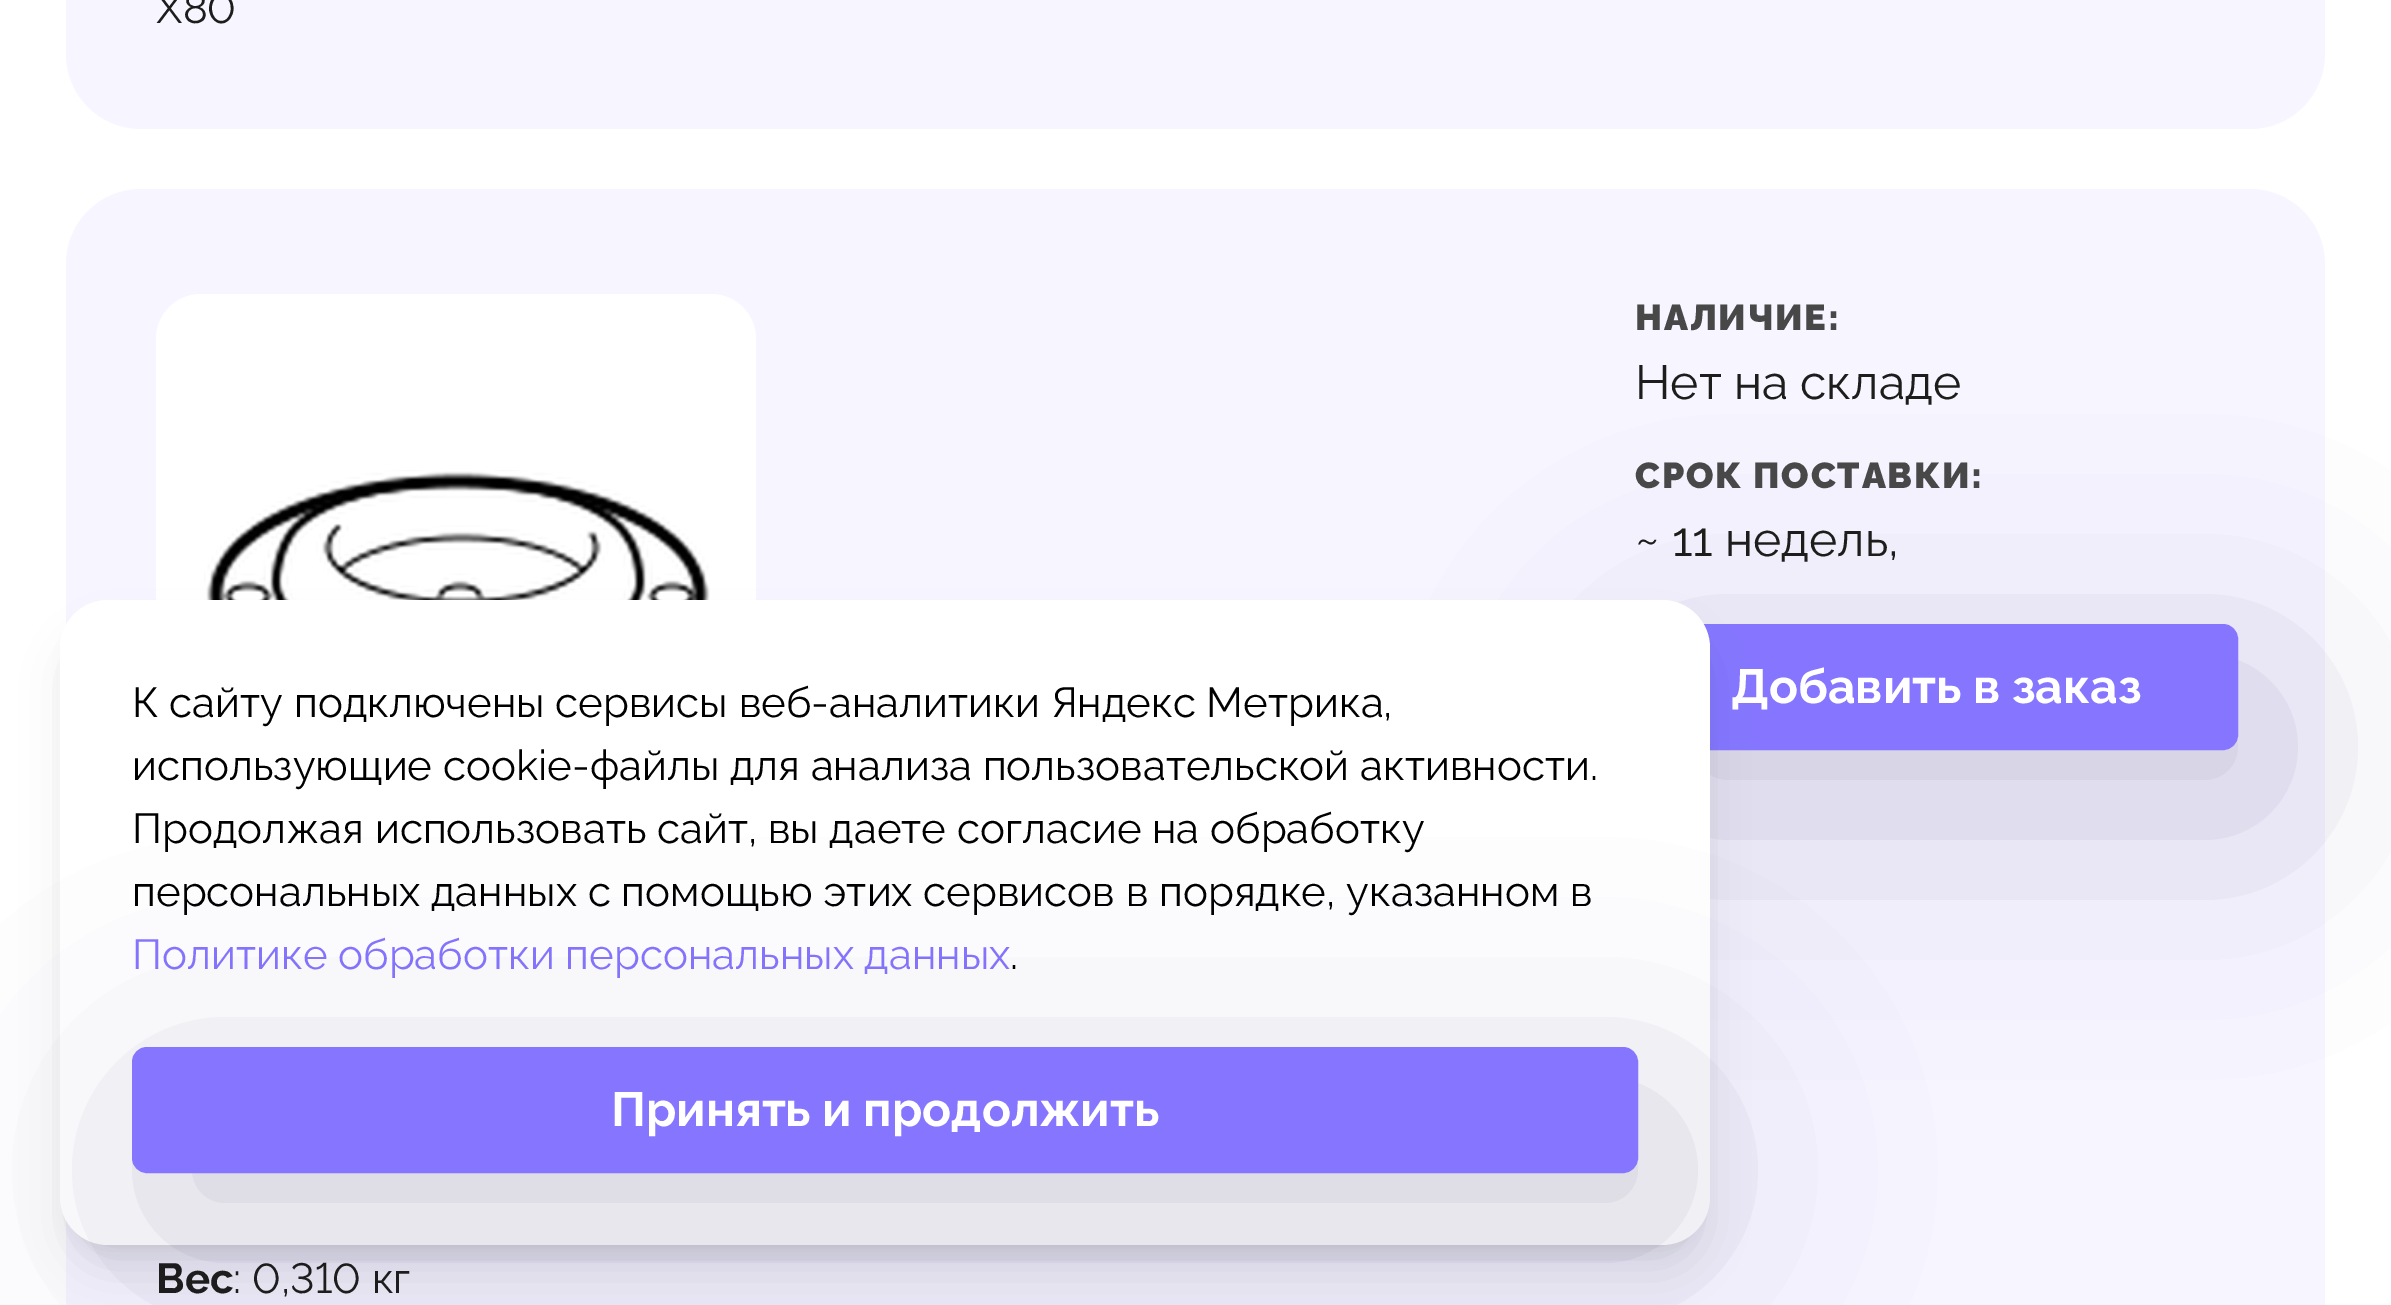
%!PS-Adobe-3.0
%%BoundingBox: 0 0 2391 1305
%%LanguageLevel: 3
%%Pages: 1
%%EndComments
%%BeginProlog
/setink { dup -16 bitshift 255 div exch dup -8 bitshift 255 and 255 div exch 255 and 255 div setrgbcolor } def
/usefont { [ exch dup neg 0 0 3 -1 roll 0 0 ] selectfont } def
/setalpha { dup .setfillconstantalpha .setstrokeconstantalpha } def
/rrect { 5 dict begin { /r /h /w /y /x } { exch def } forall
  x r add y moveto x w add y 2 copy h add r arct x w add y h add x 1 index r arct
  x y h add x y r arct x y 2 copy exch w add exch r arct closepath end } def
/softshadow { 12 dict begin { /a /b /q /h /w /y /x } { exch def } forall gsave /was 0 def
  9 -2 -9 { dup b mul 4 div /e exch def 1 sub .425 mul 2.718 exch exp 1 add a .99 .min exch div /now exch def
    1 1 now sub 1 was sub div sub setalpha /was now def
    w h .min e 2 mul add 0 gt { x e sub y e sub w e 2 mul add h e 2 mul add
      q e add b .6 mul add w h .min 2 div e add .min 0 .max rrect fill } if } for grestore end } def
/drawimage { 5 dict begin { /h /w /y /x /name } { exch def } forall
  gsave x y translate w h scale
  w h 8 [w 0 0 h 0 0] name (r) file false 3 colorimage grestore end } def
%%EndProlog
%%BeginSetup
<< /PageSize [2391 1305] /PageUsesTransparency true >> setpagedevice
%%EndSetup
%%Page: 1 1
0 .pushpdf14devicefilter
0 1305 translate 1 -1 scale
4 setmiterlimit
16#FFFFFF setink
0 0 2391 1305 rectfill
16#F7F5FF setink
66 -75 2259 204 75 rrect fill
/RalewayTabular-Regular 42 usefont
16#1D1D1B setink
156 23 moveto (X80) show
16#F7F5FF setink
66 189 2259 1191 75 rrect fill
/Raleway-Black 36 usefont
16#494849 setink
1635 330 moveto 1.75 0 (НАЛИЧИЕ:) ashow
/Raleway-Regular 48 usefont
16#1D1D1B setink
1635 399 moveto (Нет на складе) show
/Raleway-Black 36 usefont
16#494849 setink
1635 488 moveto 1.75 0 (СРОК ПОСТАВКИ:) ashow
/Raleway-Regular 48 usefont
16#1D1D1B setink
1635 556 moveto (~ 11 недель,) show
16#1D1653 setink
1665 684 603 126 15 120 0.2 softshadow
16#8676FF setink
1638 627 597 120 12 rrect gsave fill grestore
6 setlinewidth
stroke
/Raleway-Bold 48 usefont
16#FFFFFF setink
1731 703 moveto (Добавить в заказ) show
156 294 600 600 45 rrect fill
(img1.raw) 204 470 506 130 drawimage
/Raleway-Bold 42 usefont
16#1D1D1B setink
156 1293 moveto (Вес) show
/Raleway-Regular 42 usefont
233 1293 moveto (:) show
/RalewayTabular-Regular 42 usefont
252 1293 moveto (0,310 кг) show
16#000000 setink
72 624 1626 621 36 9 0.1 softshadow
69 639 1632 627 39 22.5 0.1 softshadow
16#FFFFFF setink
60 600 1650 645 48 rrect fill
/Raleway-Regular 42 usefont
16#000000 setink
[
    [(К сайту подключены сервисы веб-аналитики Яндекс Метрика,) 132 717]
    [(использующие cookie-файлы для анализа пользовательской активности.) 132 780]
    [(Продолжая использовать сайт, вы даете согласие на обработку) 132 843]
    [(персональных данных с помощью этих сервисов в порядке, указанном в) 132 906]
] { aload pop moveto show } forall
16#8676FF setink
132 969 moveto (Политике обработки персональных данных) show
16#000000 setink
1010 969 moveto (.) show
16#1D1653 setink
162 1107 1506 126 15 120 0.2 softshadow
16#8676FF setink
135 1050 1500 120 12 rrect gsave fill grestore
stroke
/Raleway-Bold 48 usefont
16#FFFFFF setink
611 1126 moveto (Принять и продолжить) show
.poppdf14devicefilter showpage
%%EOF
